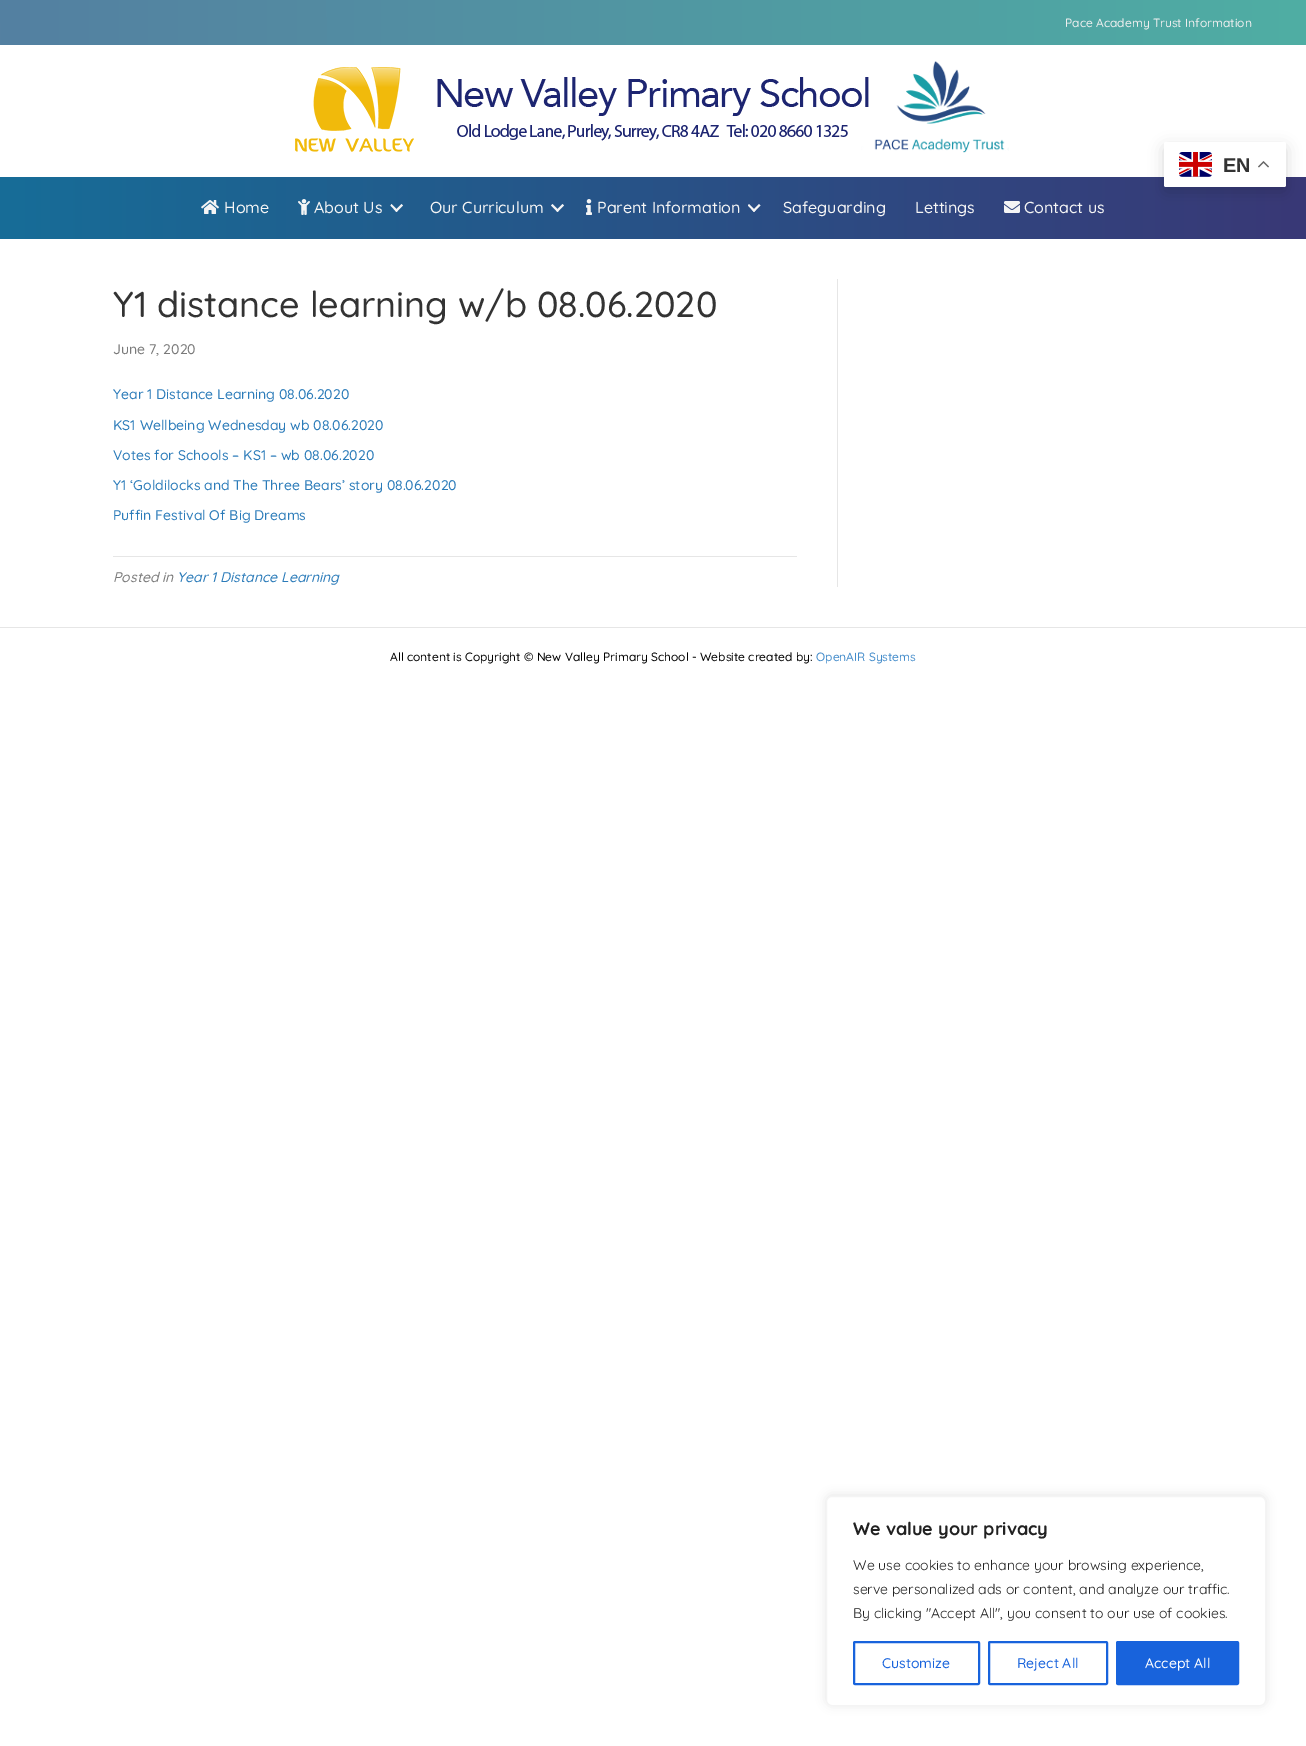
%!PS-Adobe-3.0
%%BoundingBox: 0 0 1306 1746
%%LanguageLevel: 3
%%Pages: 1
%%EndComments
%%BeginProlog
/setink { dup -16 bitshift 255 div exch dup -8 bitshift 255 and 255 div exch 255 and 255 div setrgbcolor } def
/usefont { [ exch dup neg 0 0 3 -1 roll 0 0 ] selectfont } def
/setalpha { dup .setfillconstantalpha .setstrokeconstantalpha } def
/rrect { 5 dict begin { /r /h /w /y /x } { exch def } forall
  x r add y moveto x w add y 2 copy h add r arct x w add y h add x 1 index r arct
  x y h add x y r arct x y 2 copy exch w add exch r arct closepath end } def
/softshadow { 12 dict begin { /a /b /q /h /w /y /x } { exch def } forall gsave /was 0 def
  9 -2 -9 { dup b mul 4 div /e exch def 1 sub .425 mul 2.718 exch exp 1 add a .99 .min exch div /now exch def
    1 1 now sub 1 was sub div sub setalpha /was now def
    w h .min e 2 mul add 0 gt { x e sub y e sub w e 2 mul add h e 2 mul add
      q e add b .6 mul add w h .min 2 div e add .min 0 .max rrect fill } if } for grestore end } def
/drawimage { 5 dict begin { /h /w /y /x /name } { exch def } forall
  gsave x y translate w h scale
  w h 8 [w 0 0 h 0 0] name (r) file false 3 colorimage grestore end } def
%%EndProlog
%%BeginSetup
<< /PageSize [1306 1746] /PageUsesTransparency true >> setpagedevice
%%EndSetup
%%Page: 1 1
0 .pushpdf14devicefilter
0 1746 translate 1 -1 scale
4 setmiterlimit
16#FFFFFF setink
0 0 1306 1746 rectfill
gsave 0 0 moveto 1306 0 lineto 1306 45 lineto 0 45 lineto closepath clip newpath
<< /ShadingType 2 /ColorSpace /DeviceRGB /Coords [0 23 1306 22] /Extend [true true] /Function << /FunctionType 2 /Domain [0 1] /C0 [0.329 0.502 0.631] /C1 [0.31 0.682 0.643] /N 1 >> >> shfill grestore
/Quicksand-Medium 12 usefont
16#EFEFEF setink
1065 27 moveto (Pace Academy Trust Information) show
(img1.raw) 295 61 714 92 drawimage
gsave 0 177 moveto 1306 177 lineto 1306 239 lineto 0 239 lineto closepath clip newpath
<< /ShadingType 2 /ColorSpace /DeviceRGB /Coords [0 208 1306 208] /Extend [true true] /Function << /FunctionType 2 /Domain [0 1] /C0 [0.09 0.427 0.596] /C1 [0.224 0.22 0.463] /N 1 >> >> shfill grestore
(img2.raw) 201 200 18 14 drawimage
/Quicksand-Medium 16 usefont
16#F5F5F5 setink
224 213 moveto (Home) show
(img3.raw) 298 199 12 16 drawimage
314 213 moveto (About Us) show
401.5 204 moveto 403 205.5 lineto 396.5 212 lineto 395 210.5 lineto closepath fill
391.5 204 moveto 398 210.5 lineto 396.5 212 lineto 390.5 205.5 lineto closepath fill
430 213 moveto (Our Curriculum) show
562.5 204 moveto 564 205.5 lineto 557.5 212 lineto 556 210.5 lineto closepath fill
552.5 204 moveto 559 210.5 lineto 557.5 212 lineto 551 205.5 lineto closepath fill
(img4.raw) 586 199 6 16 drawimage
597 213 moveto (Parent Information) show
759 204 moveto 760.5 205.5 lineto 754 212 lineto 752.5 210.5 lineto closepath fill
749 204 moveto 755.5 210.5 lineto 754 212 lineto 748 205.5 lineto closepath fill
783 213 moveto (Safeguarding) show
915 213 moveto (Lettings) show
(img5.raw) 1004 201 16 12 drawimage
1024 213 moveto (Contact us) show
16#E6E6E6 setink
837 279 1 308 rectfill
/Quicksand-Medium 36 usefont
16#333333 setink
113 317 moveto (Y1 distance learning w/b 08.06.2020) show
/Quicksand-Medium 14 usefont
16#7A7A7A setink
113 354 moveto (June 7, 2020) show
16#2B7BB9 setink
[
    [(Year 1 Distance Learning 08.06.2020) 113 399]
    [(KS1 Wellbeing Wednesday wb 08.06.2020) 113 430]
    [(Votes for Schools – KS1 – wb 08.06.2020) 113 460]
    [(Y1 ‘Goldilocks and The Three Bears’ story 08.06.2020) 113 490]
    [(Puffin Festival Of Big Dreams) 113 520]
] { aload pop moveto show } forall
16#E6E6E6 setink
113 556 684 1 rectfill
/Quicksand-MediumItalic 14 usefont
16#7A7A7A setink
113 582 moveto (Posted in) show
16#2B7BB9 setink
177 582 moveto (Year 1 Distance Learning) show
16#E6E6E6 setink
0 627 1306 1 rectfill
/Quicksand-Medium 12 usefont
16#000000 setink
390 661 moveto (All content is Copyright © New Valley Primary School - Website created by:) show
16#428BCA setink
816 661 moveto (OpenAIR Systems) show
16#000000 setink
1164 147 122 45 2 7.5 0.15 softshadow
16#FFFFFF setink
1164 142 122 45 2 rrect fill
(img6.raw) 1179 152 33 25 drawimage
/LiberationSans-Bold 20 usefont
16#333333 setink
1223 172 moveto (EN) show
(img7.raw) 1258 161 11 7 drawimage
16#ACABAB setink
826 1495 440 210 6 5 0.3 softshadow
16#FFFFFF setink
826.5 1496.5 439 209 5.5 rrect gsave fill grestore
16#F4F4F4 setink
stroke
/Quicksand-Bold 18 usefont
16#212121 setink
853 1535 moveto (We value your privacy) show
/Quicksand-Regular 14 usefont
[
    [(We use cookies to enhance your browsing experience,) 853 1570]
    [(serve personalized ads or content, and analyze our traffic.) 853 1594]
    [(By clicking "Accept All", you consent to our use of cookies.) 853 1618]
] { aload pop moveto show } forall
16#1863DC setink
2 setlinewidth
854 1642 125 42 1 rrect stroke
/Quicksand-Medium 14 usefont
882 1668 moveto (Customize) show
989 1642 118 42 1 rrect stroke
1017 1668 moveto (Reject All) show
1117 1642 121 42 1 rrect gsave fill grestore
stroke
16#FFFFFF setink
1145 1668 moveto (Accept All) show
.poppdf14devicefilter showpage
%%EOF
